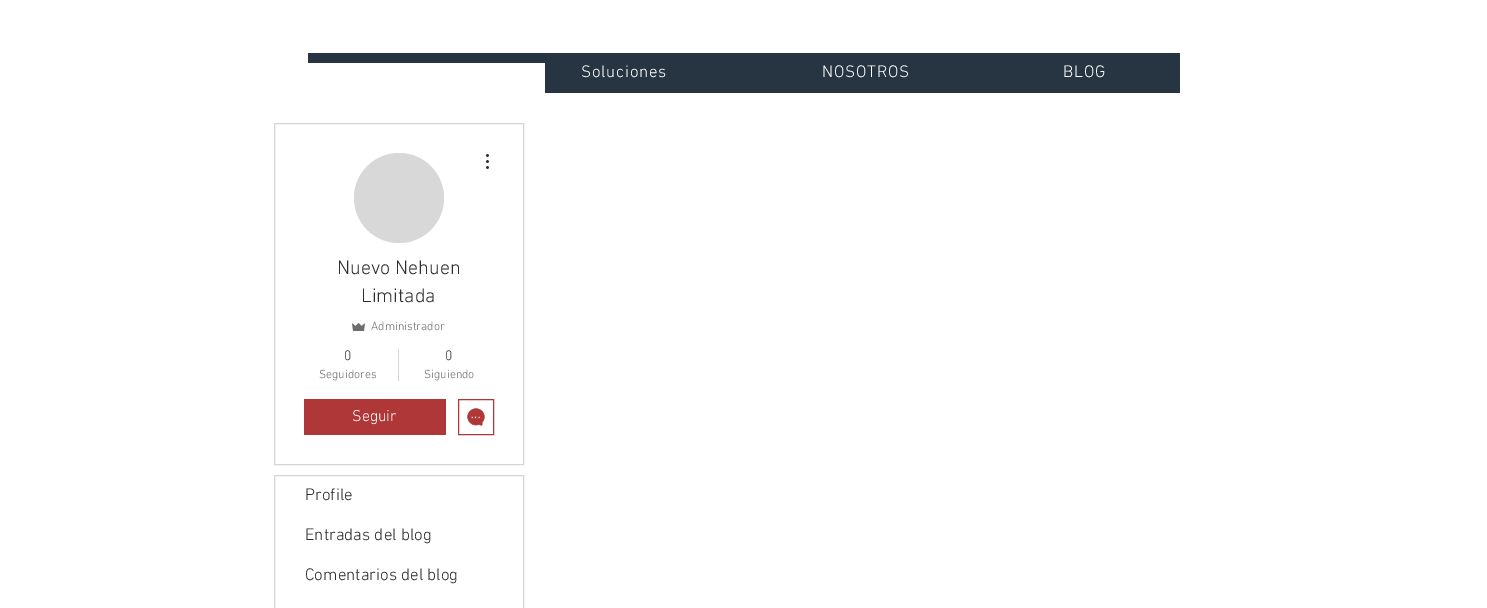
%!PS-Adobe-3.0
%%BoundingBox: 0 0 1487 608
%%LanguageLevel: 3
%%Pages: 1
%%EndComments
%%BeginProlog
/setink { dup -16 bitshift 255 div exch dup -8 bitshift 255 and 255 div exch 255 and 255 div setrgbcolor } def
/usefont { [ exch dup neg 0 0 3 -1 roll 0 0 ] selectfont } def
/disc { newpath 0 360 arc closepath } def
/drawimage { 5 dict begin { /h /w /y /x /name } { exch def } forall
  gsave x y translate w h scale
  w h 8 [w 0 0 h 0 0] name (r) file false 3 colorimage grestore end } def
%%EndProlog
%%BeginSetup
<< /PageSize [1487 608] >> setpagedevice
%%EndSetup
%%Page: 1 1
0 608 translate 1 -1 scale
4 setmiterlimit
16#FFFFFF setink
0 0 1487 608 rectfill
16#273542 setink
308 53 872 40 rectfill
/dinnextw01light-Light 17 usefont
16#FFFFFF setink
581 77 moveto 0.75 0 (Soluciones) ashow
822 77 moveto 0.75 0 (NOSOTROS) ashow
1063 77 moveto 0.75 0 (BLOG) ashow
308 63 237 30 rectfill
16#D5D5D5 setink
274.5 123.5 249 341 rectstroke
16#D8D8D8 setink
399 198 45 disc fill
(img1.raw) 486 154 3 15 drawimage
/dinnextw01light-Light 20 usefont
16#2F2E2E setink
337 274 moveto (Nuevo Nehuen) show
361 302 moveto (Limitada) show
(img2.raw) 352 323 13 8 drawimage
/dinnextw01light-Light 12 usefont
16#6D6D6D setink
371 330 moveto (Administrador) show
/dinnextw01light-Light 14 usefont
16#2F2E2E setink
344 360 moveto (0) show
/dinnextw01light-Light 12 usefont
16#6D6D6D setink
319 378 moveto (Seguidores) show
16#D5D5D5 setink
398 349 1 32 rectfill
/dinnextw01light-Light 14 usefont
16#2F2E2E setink
445 360 moveto (0) show
/dinnextw01light-Light 12 usefont
16#6D6D6D setink
424 378 moveto (Siguiendo) show
16#B03737 setink
304 399 142 36 rectfill
/dinnextw01light-Light 16 usefont
16#FFFFFF setink
352 421 moveto (Seguir) show
16#B03737 setink
458.5 399.5 35 35 rectstroke
(img3.raw) 467 408 18 18 drawimage
16#D5D5D5 setink
274.5 475.5 249 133 rectstroke
/dinnextw01light-Light 17 usefont
16#2F2E2E setink
[
    [(Profile) 305 500]
    [(Entradas del blog) 305 540]
    [(Comentarios del blog) 305 580]
] { aload pop moveto show } forall
showpage
%%EOF
